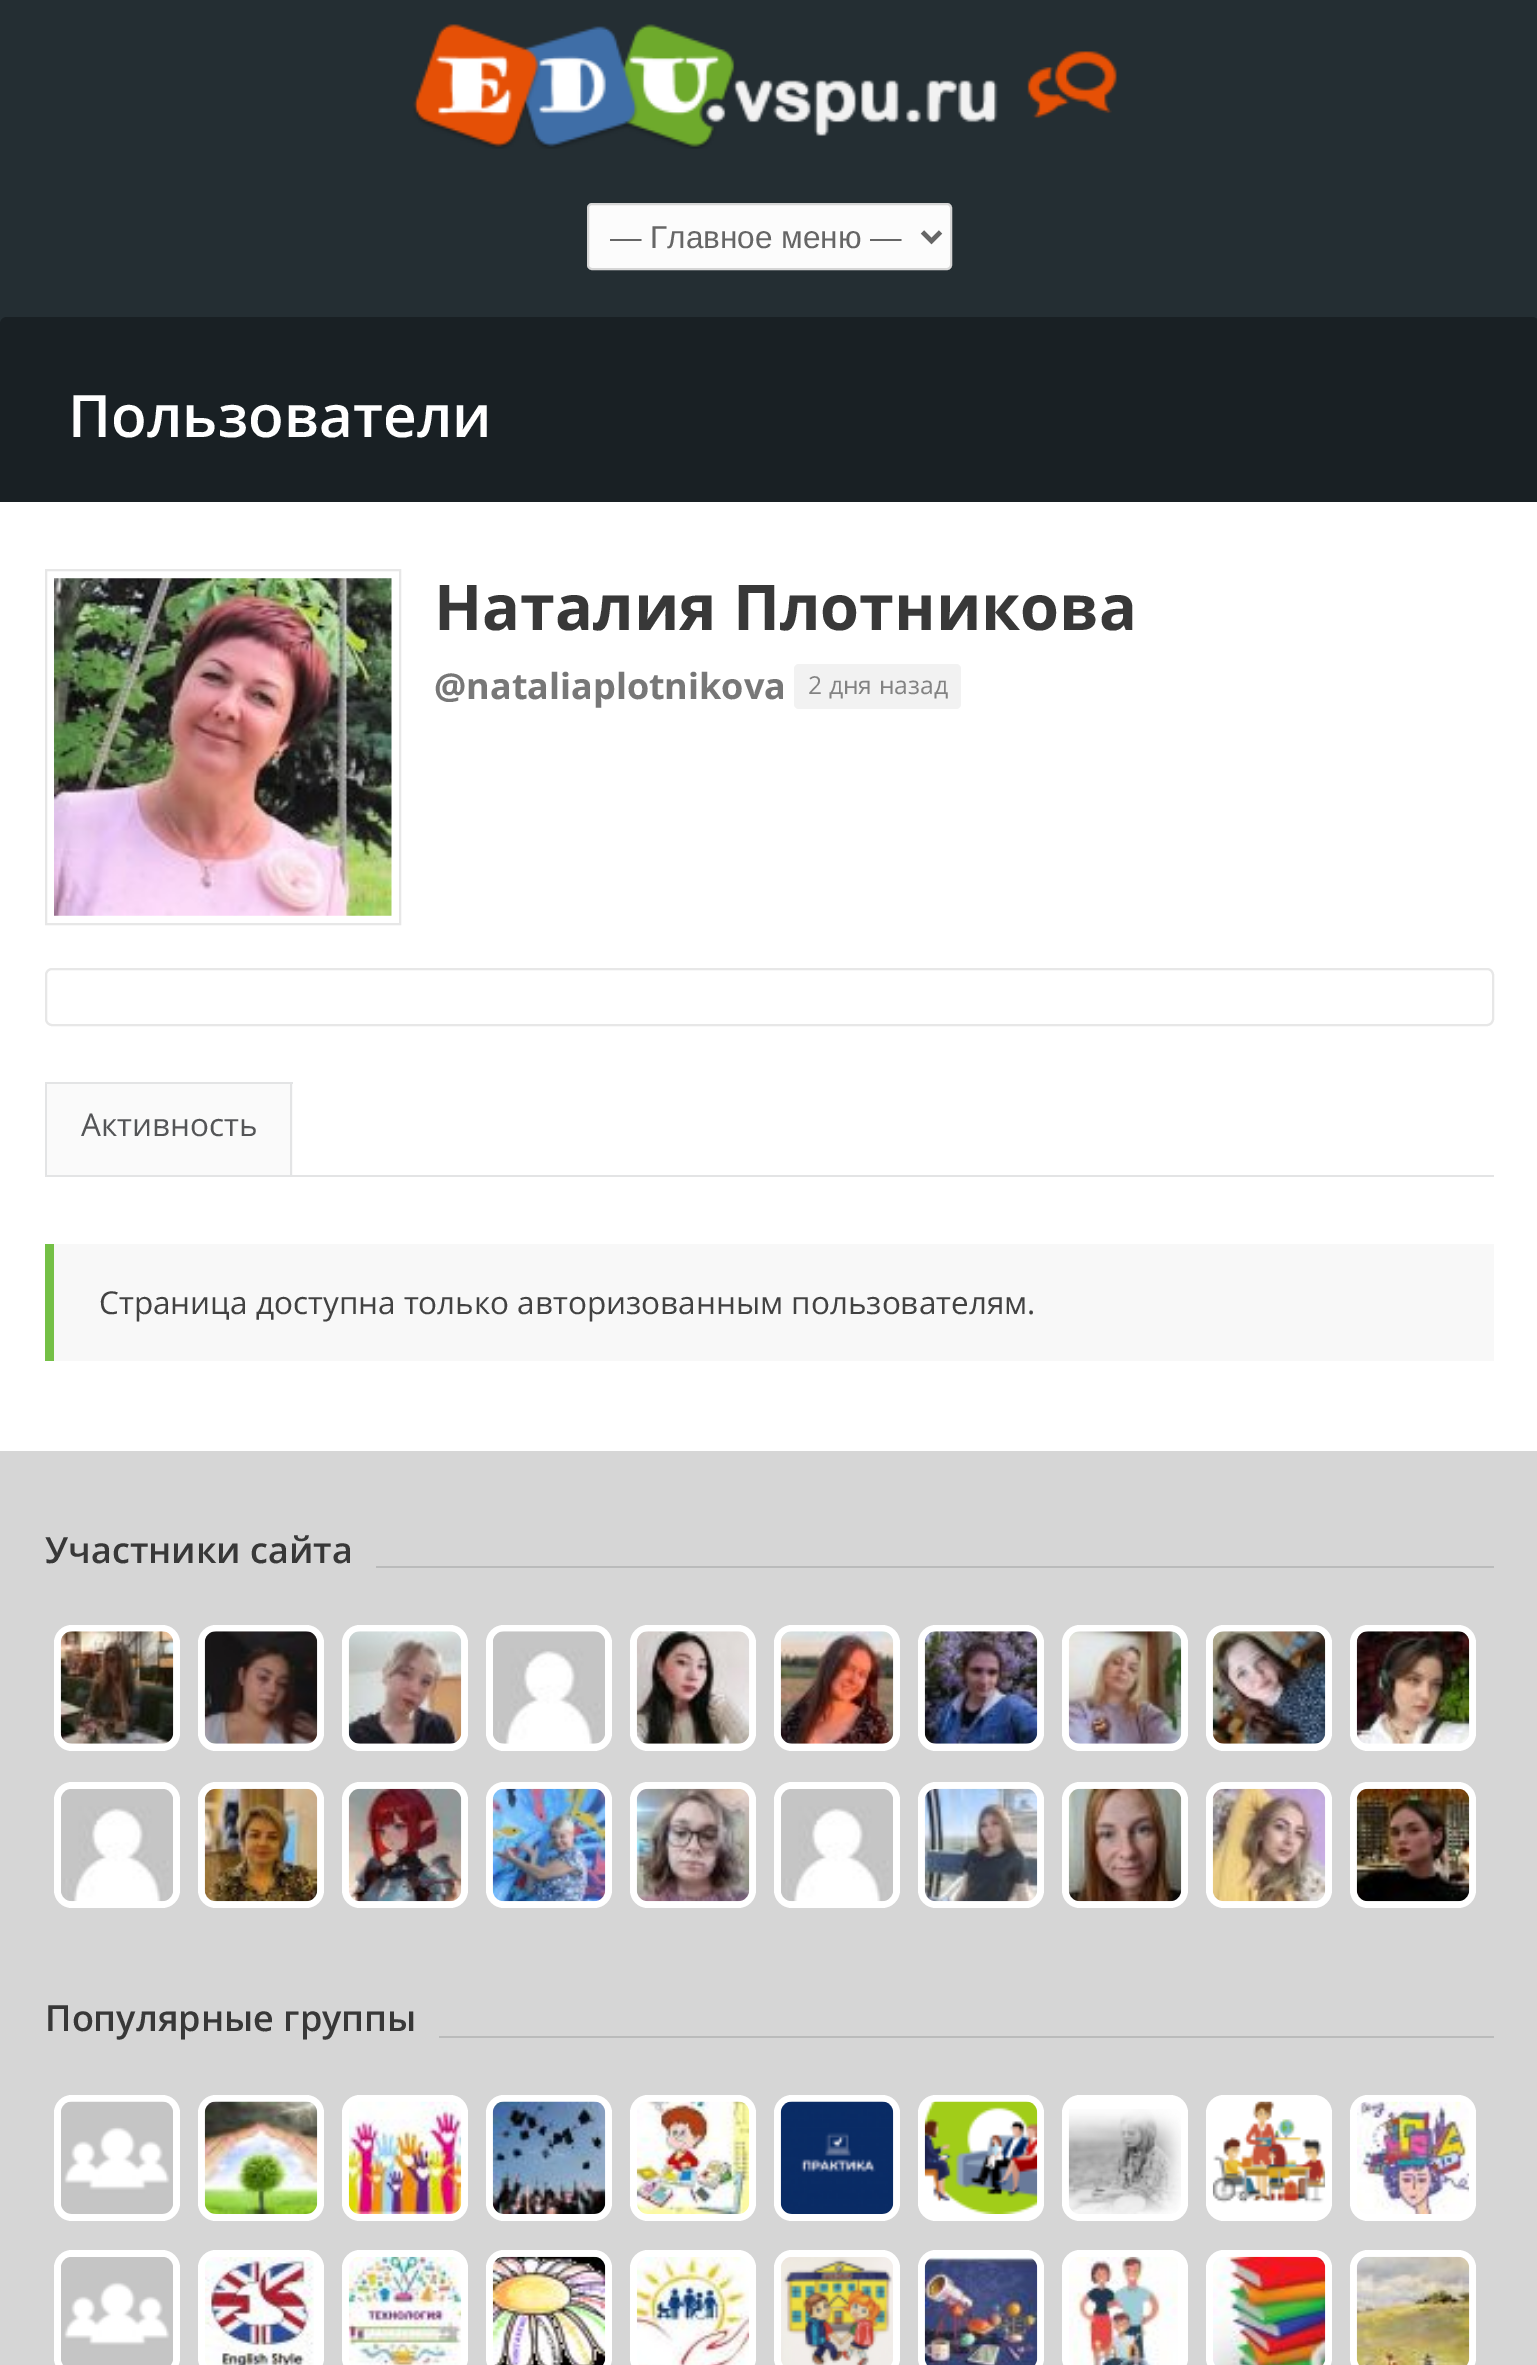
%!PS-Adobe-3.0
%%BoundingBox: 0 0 1537 2365
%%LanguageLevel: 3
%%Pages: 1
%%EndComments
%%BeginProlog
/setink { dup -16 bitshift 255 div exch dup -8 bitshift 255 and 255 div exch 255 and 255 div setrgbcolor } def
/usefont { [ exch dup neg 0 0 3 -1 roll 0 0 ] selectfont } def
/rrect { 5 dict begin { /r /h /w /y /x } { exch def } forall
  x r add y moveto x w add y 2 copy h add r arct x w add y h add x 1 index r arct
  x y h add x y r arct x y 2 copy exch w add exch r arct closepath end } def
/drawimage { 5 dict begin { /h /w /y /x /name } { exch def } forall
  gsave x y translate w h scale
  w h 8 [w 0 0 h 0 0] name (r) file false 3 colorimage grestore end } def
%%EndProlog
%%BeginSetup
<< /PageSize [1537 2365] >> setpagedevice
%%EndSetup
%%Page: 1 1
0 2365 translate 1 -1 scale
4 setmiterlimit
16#242E33 setink
0 0 1537 2365 rectfill
(img1.raw) 413 24 704 125 drawimage
16#FCFCFC setink
588 204 363 65 4 rrect gsave fill grestore
16#D6D6D6 setink
2 setlinewidth
stroke
16#666666 setink
4.5 setlinewidth
922.5 232 moveto 931.5 241 lineto 940.5 232 lineto stroke
/LiberationSans-Regular 31.5 usefont
610 248 moveto (— Главное меню —) show
16#FFFFFF setink
0 502 1537 949 rectfill
16#192024 setink
7 317 moveto 1532 317 lineto 1536 317 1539 320 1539 324 curveto 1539 502 lineto 0 502 lineto 0 324 lineto 0 320 3 317 7 317 curveto closepath fill
/OpenSans-SemiBold 58.5 usefont
16#FFFFFF setink
68 437 moveto (Пользователи) show
16#E7E7E7 setink
2 setlinewidth
46 570 354 354 rectstroke
(img2.raw) 54 578 338 338 drawimage
/OpenSans-Bold 63 usefont
16#383838 setink
434 630 moveto (Наталия Плотникова) show
/OpenSans-Bold 36 usefont
16#777777 setink
434 699 moveto (@nataliaplotnikova) show
16#F2F2F2 setink
794 664 167 45 5 rrect fill
/OpenSans-Regular 24.75 usefont
16#828282 setink
808 694 moveto (2 дня назад) show
16#E7E7E7 setink
46 969 1447 56 6 rrect stroke
[
    [45 1175 1449 2 16#E3E4E5]
    [47 1084 246 91 16#FAFAFA]
    [45 1082 248 2 16#E3E4E5]
    [290 1082 2 93 16#E3E4E5]
    [45 1082 2 93 16#E3E4E5]
] { aload pop setink rectfill } forall
/OpenSans-Regular 31.5 usefont
16#545557 setink
81 1136 moveto (Активность) show
16#F8F8F8 setink
54 1244 1440 117 rectfill
16#74C046 setink
45 1244 9 117 rectfill
16#424242 setink
99 1314 moveto (Страница доступна только авторизованным пользователям.) show
16#D6D6D6 setink
0 1451 1537 914 rectfill
16#BABBBB setink
376 1566 1118 2 rectfill
/OpenSans-SemiBold 36 usefont
16#383838 setink
45 1563 moveto (Участники сайта) show
16#FFFFFF setink
54 1625 126 126 18 rrect fill
(img3.raw) 60 1631 114 113 drawimage
198 1625 126 126 18 rrect fill
(img4.raw) 204 1631 114 113 drawimage
342 1625 126 126 18 rrect fill
(img5.raw) 348 1631 114 113 drawimage
486 1625 126 126 18 rrect fill
(img6.raw) 493 1631 112 113 drawimage
630 1625 126 126 18 rrect fill
(img7.raw) 636 1631 114 113 drawimage
774 1625 126 126 18 rrect fill
(img8.raw) 780 1631 114 113 drawimage
918 1625 126 126 18 rrect fill
(img9.raw) 924 1631 114 113 drawimage
1062 1625 126 126 18 rrect fill
(img10.raw) 1068 1631 114 113 drawimage
1206 1625 126 126 18 rrect fill
(img11.raw) 1212 1631 114 113 drawimage
1350 1625 126 126 18 rrect fill
(img12.raw) 1356 1631 114 113 drawimage
54 1782 126 126 18 rrect fill
(img13.raw) 61 1789 112 113 drawimage
198 1782 126 126 18 rrect fill
(img14.raw) 204 1788 114 114 drawimage
342 1782 126 126 18 rrect fill
(img15.raw) 348 1788 114 114 drawimage
486 1782 126 126 18 rrect fill
(img16.raw) 492 1788 114 114 drawimage
630 1782 126 126 18 rrect fill
(img17.raw) 636 1788 114 114 drawimage
774 1782 126 126 18 rrect fill
(img18.raw) 781 1789 112 113 drawimage
918 1782 126 126 18 rrect fill
(img19.raw) 924 1788 114 114 drawimage
1062 1782 126 126 18 rrect fill
(img20.raw) 1068 1788 114 114 drawimage
1206 1782 126 126 18 rrect fill
(img21.raw) 1212 1788 114 114 drawimage
1350 1782 126 126 18 rrect fill
(img22.raw) 1356 1788 114 114 drawimage
16#BABBBB setink
439 2036 1055 2 rectfill
16#383838 setink
45 2031 moveto (Популярные группы) show
16#FFFFFF setink
54 2095 126 126 18 rrect fill
(img23.raw) 61 2101 112 113 drawimage
198 2095 126 126 18 rrect fill
(img24.raw) 204 2101 114 113 drawimage
342 2095 126 126 18 rrect fill
(img25.raw) 348 2101 114 113 drawimage
486 2095 126 126 18 rrect fill
(img26.raw) 492 2101 114 113 drawimage
630 2095 126 126 18 rrect fill
(img27.raw) 636 2101 114 113 drawimage
774 2095 126 126 18 rrect fill
(img28.raw) 780 2101 114 113 drawimage
918 2095 126 126 18 rrect fill
(img29.raw) 924 2101 114 113 drawimage
1062 2095 126 126 18 rrect fill
(img30.raw) 1068 2109 113 105 drawimage
1206 2095 126 126 18 rrect fill
(img31.raw) 1212 2101 114 103 drawimage
1350 2095 126 126 18 rrect fill
(img32.raw) 1357 2101 113 113 drawimage
54 2250 126 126 18 rrect fill
(img33.raw) 61 2257 112 108 drawimage
198 2250 126 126 18 rrect fill
(img34.raw) 205 2257 109 108 drawimage
342 2250 126 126 18 rrect fill
(img35.raw) 348 2256 114 109 drawimage
486 2250 126 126 18 rrect fill
(img36.raw) 492 2256 114 109 drawimage
630 2250 126 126 18 rrect fill
(img37.raw) 636 2257 114 108 drawimage
774 2250 126 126 18 rrect fill
(img38.raw) 781 2257 112 108 drawimage
918 2250 126 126 18 rrect fill
(img39.raw) 924 2257 114 108 drawimage
1062 2250 126 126 18 rrect fill
(img40.raw) 1069 2256 109 109 drawimage
1206 2250 126 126 18 rrect fill
(img41.raw) 1213 2256 113 109 drawimage
1350 2250 126 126 18 rrect fill
(img42.raw) 1356 2256 114 109 drawimage
showpage
%%EOF
